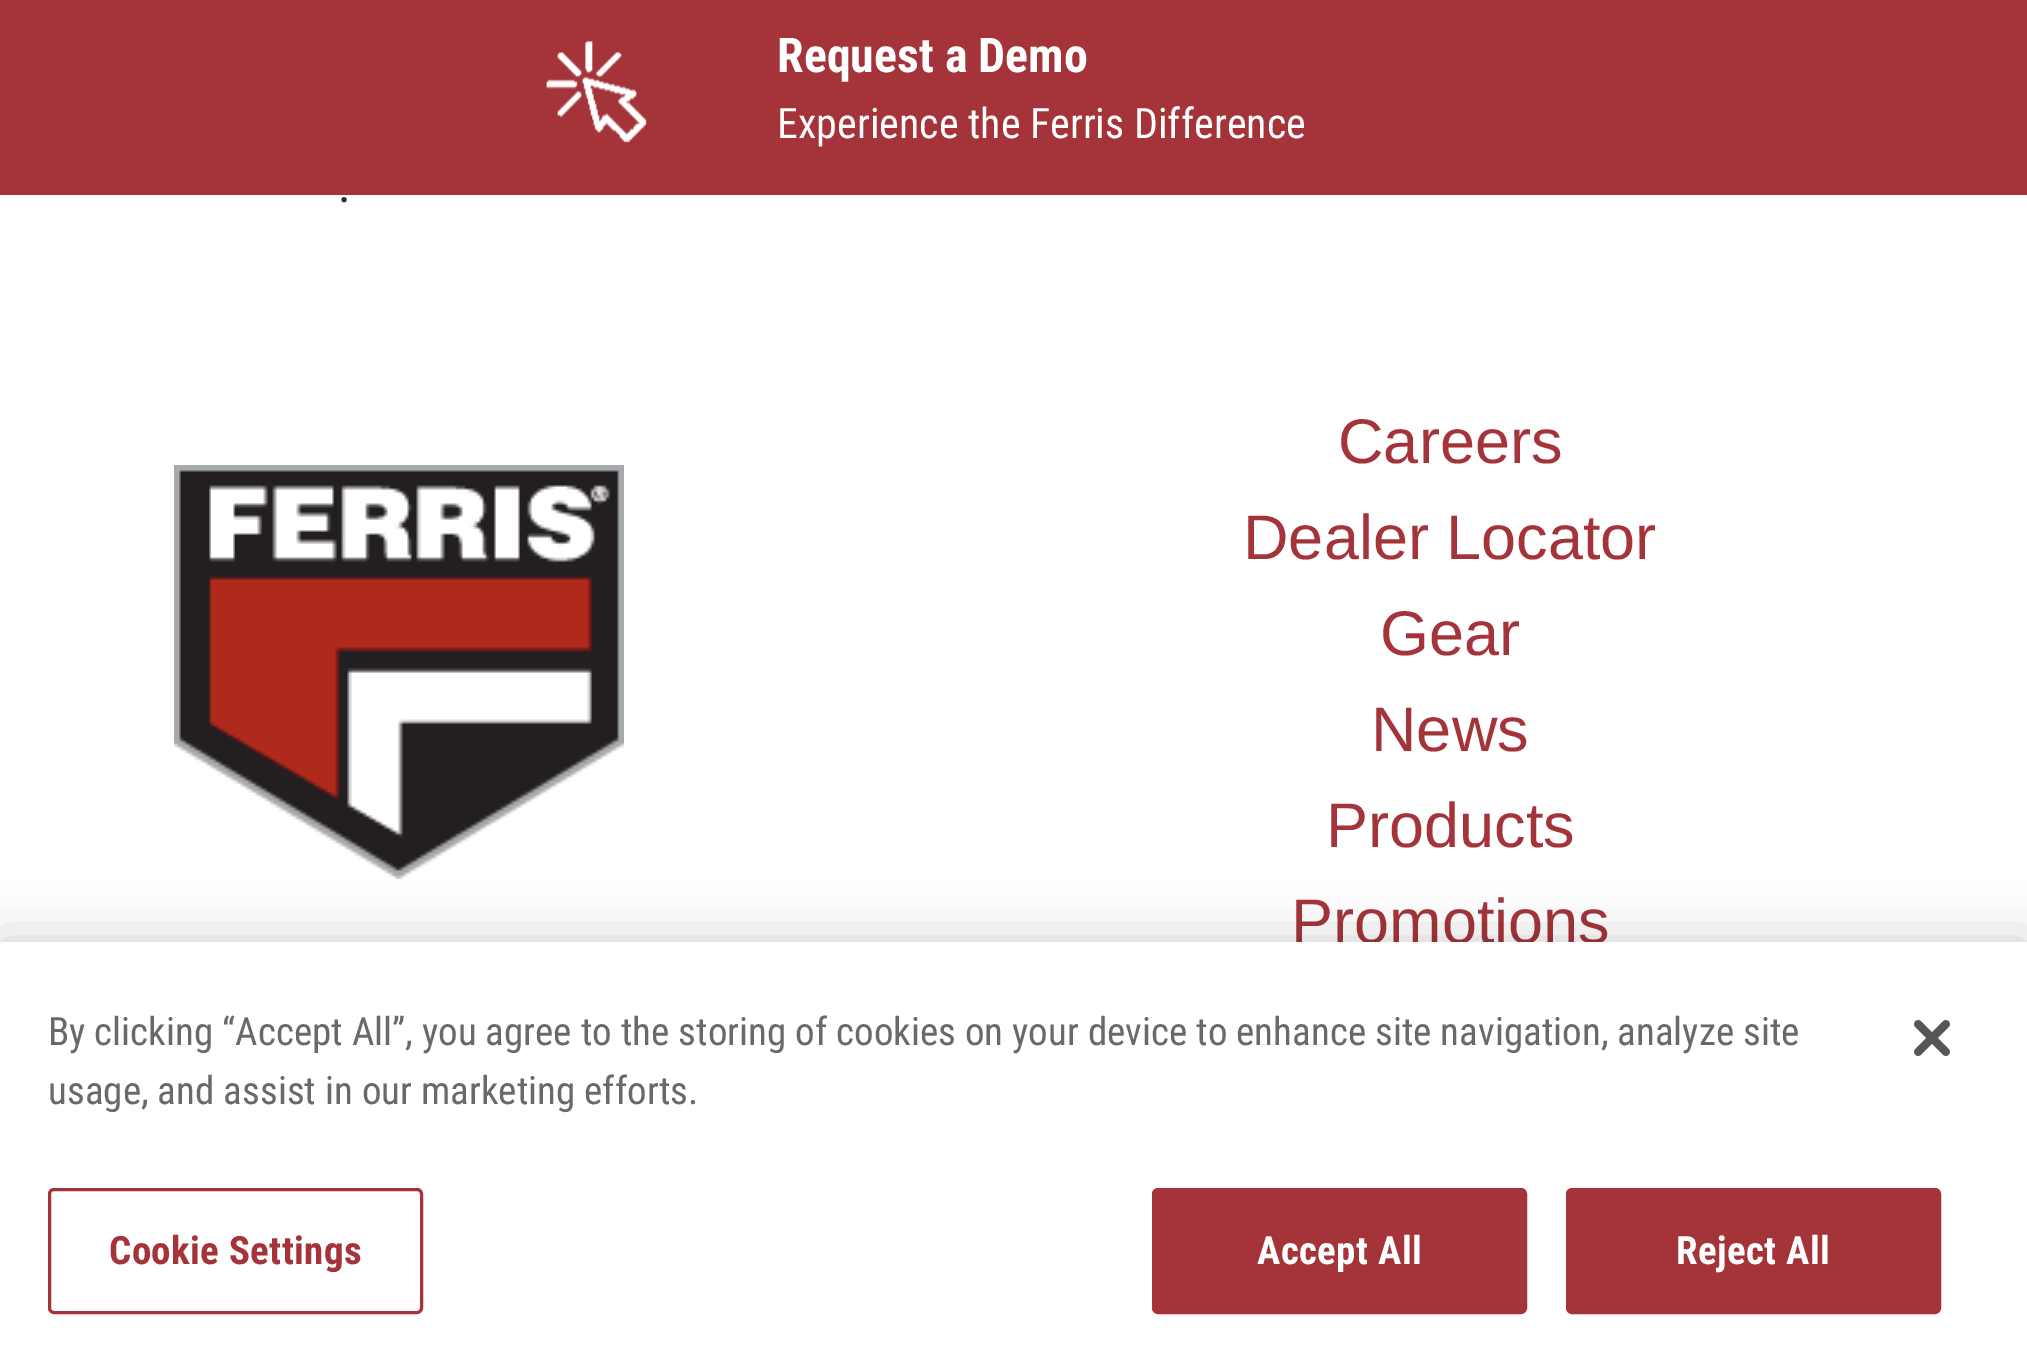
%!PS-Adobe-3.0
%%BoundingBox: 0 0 2027 1356
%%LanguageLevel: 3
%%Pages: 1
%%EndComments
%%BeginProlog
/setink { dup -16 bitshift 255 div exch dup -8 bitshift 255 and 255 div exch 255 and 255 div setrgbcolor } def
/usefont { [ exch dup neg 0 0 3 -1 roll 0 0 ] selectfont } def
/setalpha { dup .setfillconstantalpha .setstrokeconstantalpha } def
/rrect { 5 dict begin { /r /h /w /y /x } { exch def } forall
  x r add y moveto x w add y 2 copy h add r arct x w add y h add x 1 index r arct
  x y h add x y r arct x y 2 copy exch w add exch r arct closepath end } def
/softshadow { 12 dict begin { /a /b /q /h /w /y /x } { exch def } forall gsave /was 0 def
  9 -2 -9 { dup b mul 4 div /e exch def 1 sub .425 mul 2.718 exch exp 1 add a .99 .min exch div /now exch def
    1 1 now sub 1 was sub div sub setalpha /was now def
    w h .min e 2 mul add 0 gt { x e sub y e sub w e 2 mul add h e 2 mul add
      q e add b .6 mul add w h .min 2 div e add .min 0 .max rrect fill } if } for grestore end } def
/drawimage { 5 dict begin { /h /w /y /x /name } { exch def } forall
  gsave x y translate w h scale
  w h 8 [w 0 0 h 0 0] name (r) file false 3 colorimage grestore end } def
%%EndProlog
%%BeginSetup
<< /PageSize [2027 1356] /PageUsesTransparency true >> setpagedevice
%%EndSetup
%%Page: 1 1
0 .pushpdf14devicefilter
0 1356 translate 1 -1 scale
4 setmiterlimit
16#FFFFFF setink
0 0 2027 1356 rectfill
16#A4343A setink
0 0 2027 195 rectfill
(img1.raw) 546 41 101 102 drawimage
/RobotoCondensed-Bold 48 usefont
16#FFFFFF setink
777 72 moveto (Request a Demo) show
/RobotoCondensed-Regular 42 usefont
777 138 moveto (Experience the Ferris Difference) show
/RobotoCondensed-Regular 48 usefont
16#2C2A29 setink
338 202 moveto (.) show
(img2.raw) 174 465 450 414 drawimage
/LiberationSans-Regular 63 usefont
16#A4343A setink
[
    [(Careers) 1338 463]
    [(Dealer Locator) 1243 559]
    [(Gear) 1380 655]
    [(News) 1371 751]
    [(Products) 1326 847]
    [(Promotions) 1291 943]
] { aload pop moveto show } forall
16#000000 setink
0 942 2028 414 0 27 0.2 softshadow
16#FFFFFF setink
0 942 2027 414 rectfill
/RobotoCondensed-Regular 39 usefont
16#696969 setink
48 1045 moveto (By clicking “Accept All”, you agree to the storing of cookies on your device to enhance site navigation, analyze site) show
48 1104 moveto (usage, and assist in our marketing efforts.) show
16#A4343A setink
3 setlinewidth
49.5 1189.5 372 123 4.5 rrect stroke
/RobotoCondensed-Bold 39 usefont
109 1264 moveto 0.4 0 (Cookie Settings) ashow
1153.5 1189.5 372 123 4.5 rrect gsave fill grestore
stroke
16#FFFFFF setink
1257 1264 moveto 0.4 0 (Accept All) ashow
16#A4343A setink
1567.5 1189.5 372 123 4.5 rrect gsave fill grestore
stroke
16#FFFFFF setink
1676 1264 moveto 0.4 0 (Reject All) ashow
(img3.raw) 1914 1020 36 36 drawimage
.poppdf14devicefilter showpage
%%EOF
